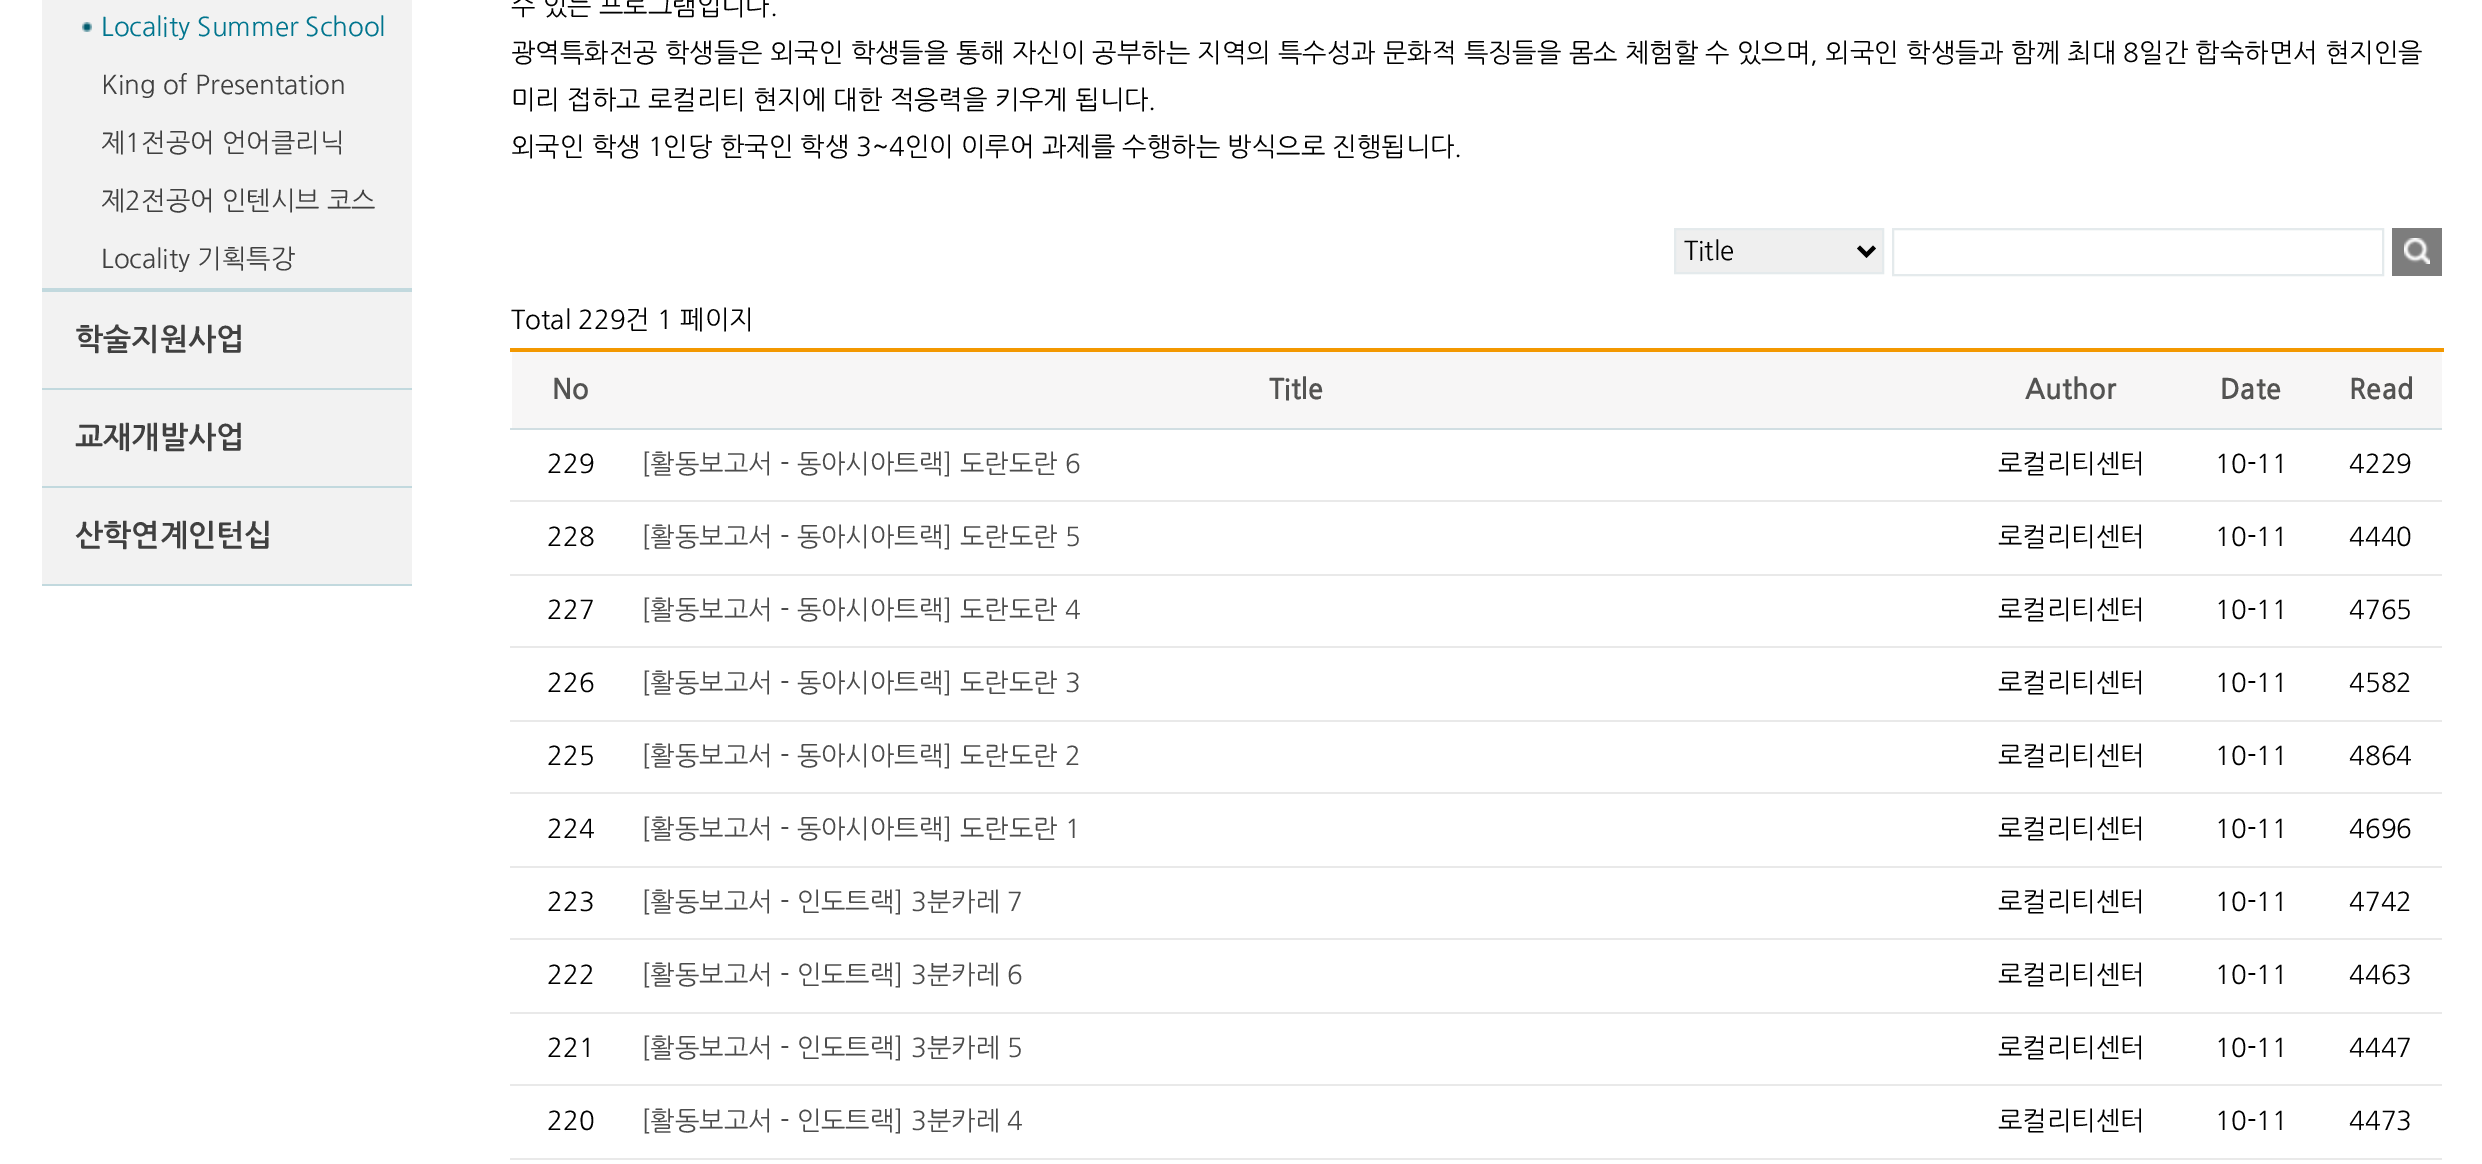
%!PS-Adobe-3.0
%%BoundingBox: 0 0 2482 1164
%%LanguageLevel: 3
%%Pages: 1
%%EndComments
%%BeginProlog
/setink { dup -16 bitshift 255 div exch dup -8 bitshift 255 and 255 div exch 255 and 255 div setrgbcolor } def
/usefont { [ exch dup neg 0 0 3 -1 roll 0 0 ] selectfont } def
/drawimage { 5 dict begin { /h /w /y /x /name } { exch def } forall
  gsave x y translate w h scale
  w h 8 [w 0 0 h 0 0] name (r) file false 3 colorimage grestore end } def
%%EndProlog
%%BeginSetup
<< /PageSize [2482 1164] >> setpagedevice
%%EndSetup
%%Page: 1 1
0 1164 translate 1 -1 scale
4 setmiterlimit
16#FFFFFF setink
0 0 2482 1164 rectfill
16#F2F2F2 setink
42 0 370 288 rectfill
16#C2D9DE setink
42 288 370 4 rectfill
(img1.raw) 82 22 10 10 drawimage
/NanumGothic-Regular 26 usefont
16#00758E setink
101 36 moveto (Locality Summer School) show
16#404040 setink
[
    [(King of Presentation) 101 94]
    [(제1전공어 언어클리닉) 101 152]
    [(제2전공어 인텐시브 코스) 101 210]
    [(Locality 기획특강) 101 268]
] { aload pop moveto show } forall
16#F2F2F2 setink
42 292 370 96 rectfill
16#C2D9DE setink
42 388 370 2 rectfill
/NanumGothic-Bold 30 usefont
16#404040 setink
75 350 moveto (학술지원사업) show
16#F2F2F2 setink
42 390 370 96 rectfill
16#C2D9DE setink
42 486 370 2 rectfill
16#404040 setink
75 448 moveto (교재개발사업) show
16#F2F2F2 setink
42 488 370 96 rectfill
16#C2D9DE setink
42 584 370 2 rectfill
16#404040 setink
75 546 moveto (산학연계인턴십) show
/NanumGothic-Regular 26 usefont
16#000000 setink
[
    [(수 있는 프로그램입니다.) 511 15]
    [(광역특화전공 학생들은 외국인 학생들을 통해 자신이 공부하는 지역의 특수성과 문화적 특징들을 몸소 체험할 수 있으며, 외국인 학생들과 함께 최대 8일간 합숙하면서 현지인을) 511 62]
    [(미리 접하고 로컬리티 현지에 대한 적응력을 키우게 됩니다.) 511 109]
    [(외국인 학생 1인당 한국인 학생 3~4인이 이루어 과제를 수행하는 방식으로 진행됩니다.) 511 156]
] { aload pop moveto show } forall
16#EFEFEF setink
1675 229 moveto 1883 229 lineto 1883 273 lineto 1675 273 lineto closepath gsave fill grestore
16#E4EAEC setink
2 setlinewidth
stroke
16#000000 setink
4 setlinewidth
1858.5 247 moveto 1866.5 255 lineto 1874.5 247 lineto stroke
1684 260 moveto (Title) show
16#E4EAEC setink
2 setlinewidth
1893 229 490 46 rectstroke
16#7D7D7D setink
2392 228 50 48 rectfill
(img2.raw) 2404 238 26 26 drawimage
16#000000 setink
511 329 moveto (Total 229건 1 페이지) show
16#F7F6F6 setink
512 352 1930 76 rectfill
/NanumGothic-Bold 28 usefont
16#535352 setink
[
    [(No) 552 399]
    [(Title) 1269 399]
    [(Author) 2025 399]
    [(Date) 2220 399]
] { aload pop moveto show } forall
16#D1DEE2 setink
510 428 1932 2 rectfill
16#F39800 setink
510 348 1934 4 rectfill
16#535352 setink
2349 399 moveto (Read) show
/NanumGothic-Regular 26 usefont
16#000000 setink
547 473 moveto (229) show
16#4C4C4C setink
641 473 moveto ([활동보고서 - 동아시아트랙] 도란도란 6) show
16#000000 setink
[
    [(로컬리티센터) 1998 473]
    [(10-11) 2215 473]
    [(4229) 2349 473]
    [(228) 547 546]
] { aload pop moveto show } forall
16#4C4C4C setink
641 546 moveto ([활동보고서 - 동아시아트랙] 도란도란 5) show
16#000000 setink
1998 546 moveto (로컬리티센터) show
2215 546 moveto (10-11) show
16#E9E9E9 setink
510 500 1932 2 rectfill
16#000000 setink
2349 546 moveto (4440) show
547 619 moveto (227) show
16#4C4C4C setink
641 619 moveto ([활동보고서 - 동아시아트랙] 도란도란 4) show
16#000000 setink
1998 619 moveto (로컬리티센터) show
2215 619 moveto (10-11) show
16#E9E9E9 setink
510 574 1932 2 rectfill
16#000000 setink
2349 619 moveto (4765) show
547 692 moveto (226) show
16#4C4C4C setink
641 692 moveto ([활동보고서 - 동아시아트랙] 도란도란 3) show
16#000000 setink
1998 692 moveto (로컬리티센터) show
2215 692 moveto (10-11) show
16#E9E9E9 setink
510 646 1932 2 rectfill
16#000000 setink
2349 692 moveto (4582) show
547 765 moveto (225) show
16#4C4C4C setink
641 765 moveto ([활동보고서 - 동아시아트랙] 도란도란 2) show
16#000000 setink
1998 765 moveto (로컬리티센터) show
2215 765 moveto (10-11) show
16#E9E9E9 setink
510 720 1932 2 rectfill
16#000000 setink
2349 765 moveto (4864) show
547 838 moveto (224) show
16#4C4C4C setink
641 838 moveto ([활동보고서 - 동아시아트랙] 도란도란 1) show
16#000000 setink
1998 838 moveto (로컬리티센터) show
2215 838 moveto (10-11) show
16#E9E9E9 setink
510 792 1932 2 rectfill
16#000000 setink
2349 838 moveto (4696) show
547 911 moveto (223) show
16#4C4C4C setink
641 911 moveto ([활동보고서 - 인도트랙] 3분카레 7) show
16#000000 setink
1998 911 moveto (로컬리티센터) show
2215 911 moveto (10-11) show
16#E9E9E9 setink
510 866 1932 2 rectfill
16#000000 setink
2349 911 moveto (4742) show
547 984 moveto (222) show
16#4C4C4C setink
641 984 moveto ([활동보고서 - 인도트랙] 3분카레 6) show
16#000000 setink
1998 984 moveto (로컬리티센터) show
2215 984 moveto (10-11) show
16#E9E9E9 setink
510 938 1932 2 rectfill
16#000000 setink
2349 984 moveto (4463) show
547 1057 moveto (221) show
16#4C4C4C setink
641 1057 moveto ([활동보고서 - 인도트랙] 3분카레 5) show
16#000000 setink
1998 1057 moveto (로컬리티센터) show
2215 1057 moveto (10-11) show
16#E9E9E9 setink
510 1012 1932 2 rectfill
16#000000 setink
2349 1057 moveto (4447) show
547 1130 moveto (220) show
16#4C4C4C setink
641 1130 moveto ([활동보고서 - 인도트랙] 3분카레 4) show
16#000000 setink
1998 1130 moveto (로컬리티센터) show
2215 1130 moveto (10-11) show
16#E9E9E9 setink
510 1084 1932 2 rectfill
16#000000 setink
2349 1130 moveto (4473) show
16#E9E9E9 setink
510 1158 1932 2 rectfill
showpage
%%EOF
